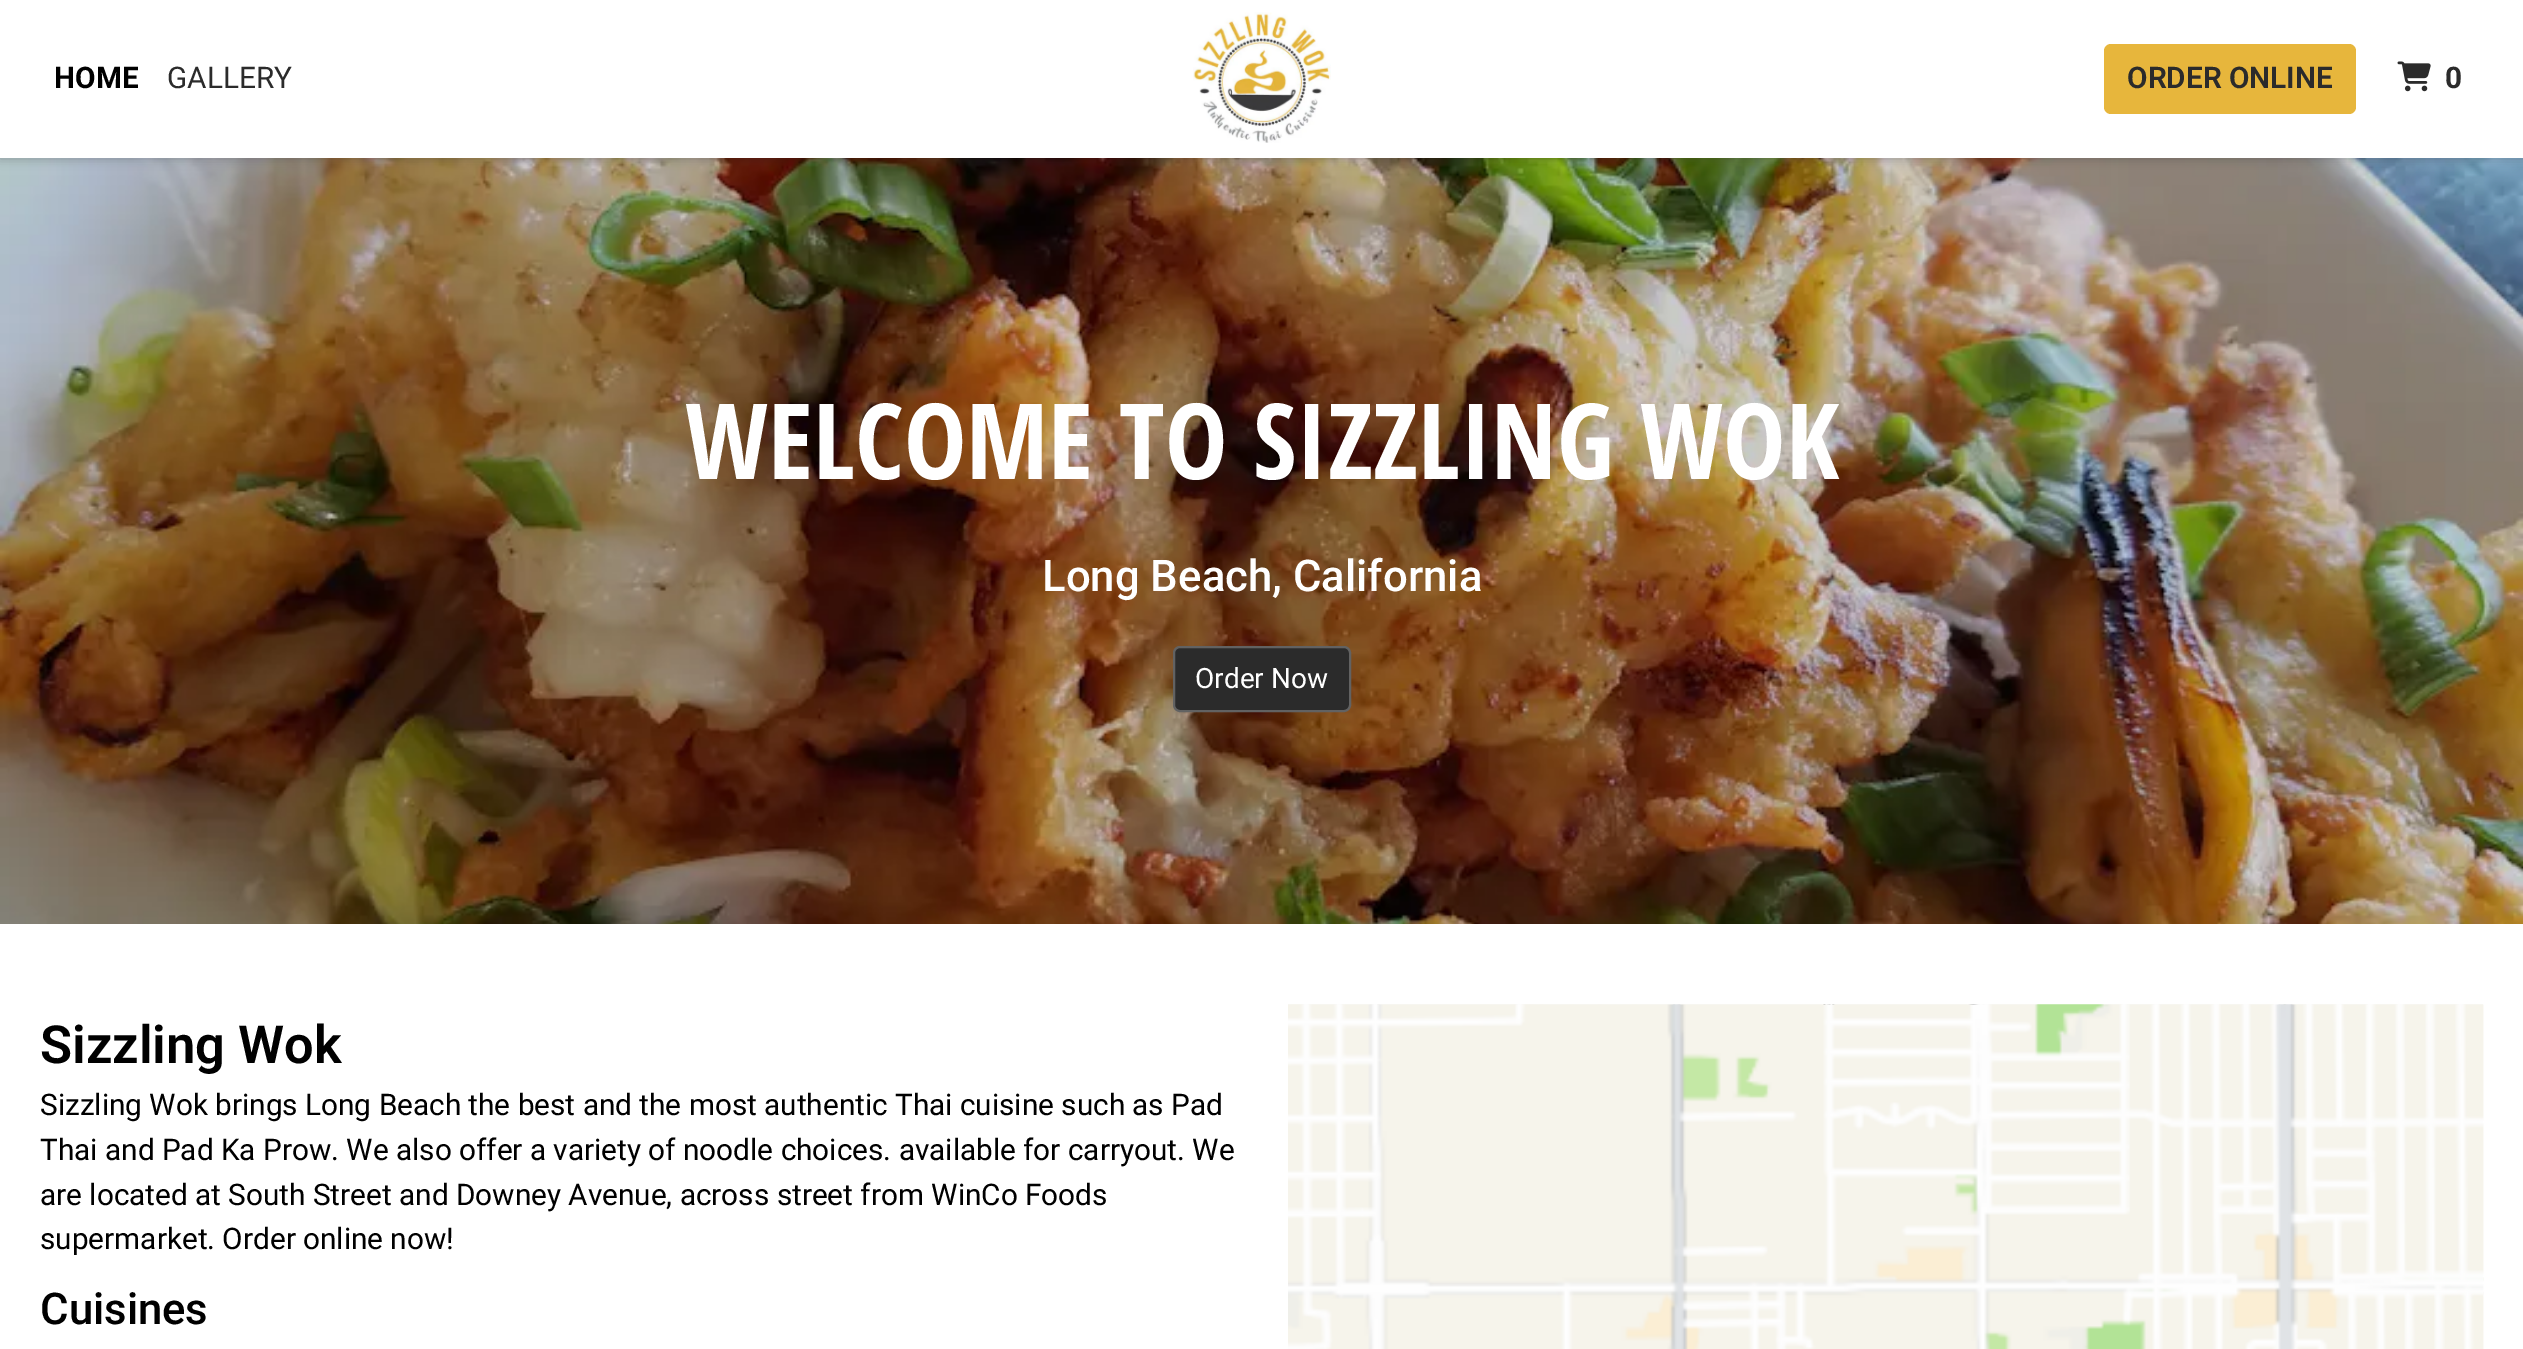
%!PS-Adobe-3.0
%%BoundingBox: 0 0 2523 1349
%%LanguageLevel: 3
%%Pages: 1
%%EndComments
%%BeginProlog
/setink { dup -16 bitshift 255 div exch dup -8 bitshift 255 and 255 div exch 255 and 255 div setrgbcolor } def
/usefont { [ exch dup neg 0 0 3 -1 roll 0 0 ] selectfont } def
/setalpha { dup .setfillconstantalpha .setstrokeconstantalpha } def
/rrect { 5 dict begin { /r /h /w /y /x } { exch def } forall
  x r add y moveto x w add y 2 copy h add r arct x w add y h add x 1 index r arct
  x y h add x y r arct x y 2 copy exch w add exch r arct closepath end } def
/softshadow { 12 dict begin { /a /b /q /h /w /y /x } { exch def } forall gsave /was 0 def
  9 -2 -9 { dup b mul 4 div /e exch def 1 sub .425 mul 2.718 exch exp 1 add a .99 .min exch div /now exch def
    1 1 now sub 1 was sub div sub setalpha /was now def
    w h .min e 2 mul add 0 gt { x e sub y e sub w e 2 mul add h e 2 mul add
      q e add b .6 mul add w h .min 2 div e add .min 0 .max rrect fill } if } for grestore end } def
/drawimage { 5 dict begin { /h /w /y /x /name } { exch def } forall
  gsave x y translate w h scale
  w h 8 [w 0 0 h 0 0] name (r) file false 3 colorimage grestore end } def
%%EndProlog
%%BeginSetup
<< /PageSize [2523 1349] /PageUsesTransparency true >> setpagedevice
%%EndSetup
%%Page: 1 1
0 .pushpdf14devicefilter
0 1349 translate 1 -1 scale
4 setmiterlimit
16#FFFFFF setink
0 0 2523 1349 rectfill
(img3.raw) 0 158 2523 766 drawimage
16#202124 setink
0 2 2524 157 0 5 0.28 softshadow
16#FFFFFF setink
0 0 2523 158 rectfill
/Roboto-Bold 29.75 usefont
16#000000 setink
54 88 moveto (HOME) show
/Roboto-Regular 29.75 usefont
16#2B2B2B setink
167 88 moveto (GALLERY) show
(img1.raw) 1193 12 138 131 drawimage
16#E7B63C setink
2104 44 252 70 7 rrect fill
/Roboto-SemiBold 29.75 usefont
16#2B2B2B setink
2127 88 moveto (ORDER ONLINE) show
(img2.raw) 2397 61 34 31 drawimage
/Roboto-Bold 29.75 usefont
2445 88 moveto (0) show
/OpenSansCondensed-Bold 105 usefont
16#FFFFFF setink
685 479 moveto (WELCOME TO SIZZLING WOK) show
/Roboto-Medium 43.75 usefont
1042 591 moveto (Long Beach, California) show
16#2B2B2B setink
1174 647 176 64 6 rrect gsave fill grestore
16#626262 setink
2 setlinewidth
stroke
/Roboto-Regular 28 usefont
16#FFFFFF setink
1195 688 moveto (Order Now) show
/Roboto-SemiBold 52.5 usefont
16#000000 setink
40 1063 moveto (Sizzling Wok) show
/Roboto-Regular 29.75 usefont
[
    [(Sizzling Wok brings Long Beach the best and the most authentic Thai cuisine such as Pad) 40 1115]
    [(Thai and Pad Ka Prow. We also offer a variety of noodle choices. available for carryout. We) 40 1160]
    [(are located at South Street and Downey Avenue, across street from WinCo Foods) 40 1205]
    [(supermarket. Order online now!) 40 1249]
] { aload pop moveto show } forall
/Roboto-Medium 43.75 usefont
40 1324 moveto (Cuisines) show
(img4.raw) 1288 1004 1196 345 drawimage
(img5.raw) 1288 1004 1196 345 drawimage
.poppdf14devicefilter showpage
%%EOF
